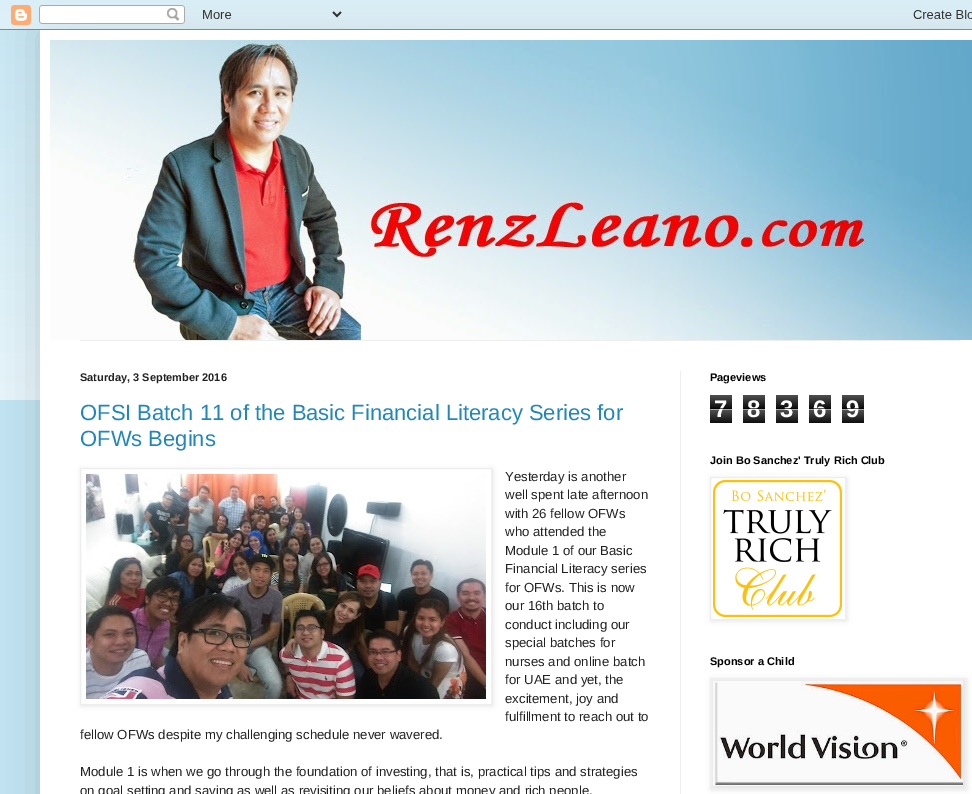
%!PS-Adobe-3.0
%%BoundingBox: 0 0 972 794
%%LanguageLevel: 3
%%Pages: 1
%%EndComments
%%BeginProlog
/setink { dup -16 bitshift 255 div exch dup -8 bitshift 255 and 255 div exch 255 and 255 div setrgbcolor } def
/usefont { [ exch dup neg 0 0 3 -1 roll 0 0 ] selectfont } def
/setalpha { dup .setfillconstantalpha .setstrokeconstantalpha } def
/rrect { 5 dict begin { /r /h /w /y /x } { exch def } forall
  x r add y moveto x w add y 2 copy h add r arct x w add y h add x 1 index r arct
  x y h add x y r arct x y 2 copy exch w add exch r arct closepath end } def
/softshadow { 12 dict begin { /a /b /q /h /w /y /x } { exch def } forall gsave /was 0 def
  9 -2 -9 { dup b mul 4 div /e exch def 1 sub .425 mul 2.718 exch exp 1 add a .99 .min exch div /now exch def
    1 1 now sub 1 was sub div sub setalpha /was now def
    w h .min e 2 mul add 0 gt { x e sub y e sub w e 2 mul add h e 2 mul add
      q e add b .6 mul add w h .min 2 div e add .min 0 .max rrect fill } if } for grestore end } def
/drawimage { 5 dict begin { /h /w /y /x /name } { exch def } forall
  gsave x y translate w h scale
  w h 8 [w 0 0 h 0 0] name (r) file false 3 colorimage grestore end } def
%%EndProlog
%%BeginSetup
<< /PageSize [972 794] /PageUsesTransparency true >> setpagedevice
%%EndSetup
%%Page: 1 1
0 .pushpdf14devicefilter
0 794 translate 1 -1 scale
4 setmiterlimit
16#C2E4F2 setink
0 0 972 794 rectfill
(img2.raw) 0 10 972 390 drawimage
16#000000 setink
40 30 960 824 0 20 0.15 softshadow
(img1.raw) 0 0 972 30 drawimage
16#FFFFFF setink
40 30 932 764 rectfill
(img3.raw) 50 40 922 300 drawimage
16#EEEEEE setink
80 340 880 1 rectfill
680 371 1 423 rectfill
/LiberationSans-Bold 11 usefont
16#222222 setink
80 381 moveto (Saturday, 3 September 2016) show
/LiberationSans-Regular 22 usefont
16#2187BB setink
80 420 moveto (OFSI Batch 11 of the Basic Financial Literacy Series for) show
80 446 moveto (OFWs Begins) show
gsave
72 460 moveto 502 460 lineto 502 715 lineto 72 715 lineto closepath 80 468 moveto 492 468 lineto 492 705 lineto 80 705 lineto closepath eoclip newpath
16#000000 setink
81 469 412 237 0 2.5 0.1 softshadow
grestore
16#EEEEEE setink
80.5 468.5 411 236 rectstroke
(img4.raw) 86 474 400 225 drawimage
/LiberationSans-Regular 13.2 usefont
16#222222 setink
[
    [(Yesterday is another) 505 481]
    [(well spent late afternoon) 505 499]
    [(with 26 fellow OFWs) 505 518]
    [(who attended the) 505 536]
    [(Module 1 of our Basic) 505 555]
    [(Financial Literacy series) 505 573]
    [(for OFWs. This is now) 505 592]
    [(our 16th batch to) 505 610]
    [(conduct including our) 505 629]
    [(special batches for) 505 647]
    [(nurses and online batch) 505 666]
    [(for UAE and yet, the) 505 684]
    [(excitement, joy and) 505 703]
    [(fulfillment to reach out to) 505 721]
    [(fellow OFWs despite my challenging schedule never wavered.) 80 739]
    [(Module 1 is when we go through the foundation of investing, that is, practical tips and strategies) 80 776]
    [(on goal setting and saving as well as revisiting our beliefs about money and rich people.) 80 795]
] { aload pop moveto show } forall
/LiberationSans-Bold 11 usefont
16#000000 setink
710 381 moveto (Pageviews) show
(img5.raw) 710 395 22 28 drawimage
/LiberationSans-Bold 24 usefont
16#FFFFFF setink
714 417 moveto (7) show
0.65 setalpha
16#000000 setink
710 408 22 1 rectfill
16#FFFFFF setink
710 409 22 1 rectfill
1 setalpha
(img5.raw) 743 395 22 28 drawimage
747 417 moveto (8) show
0.65 setalpha
16#000000 setink
743 408 22 1 rectfill
16#FFFFFF setink
743 409 22 1 rectfill
1 setalpha
(img5.raw) 776 395 22 28 drawimage
780 417 moveto (3) show
0.65 setalpha
16#000000 setink
776 408 22 1 rectfill
16#FFFFFF setink
776 409 22 1 rectfill
1 setalpha
(img5.raw) 809 395 22 28 drawimage
813 417 moveto (6) show
0.65 setalpha
16#000000 setink
809 408 22 1 rectfill
16#FFFFFF setink
809 409 22 1 rectfill
1 setalpha
(img5.raw) 842 395 22 28 drawimage
846 417 moveto (9) show
0.65 setalpha
16#000000 setink
842 408 22 1 rectfill
16#FFFFFF setink
842 409 22 1 rectfill
/LiberationSans-Bold 11 usefont
1 setalpha
16#000000 setink
710 464 moveto (Join Bo Sanchez' Truly Rich Club) show
gsave
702 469 moveto 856 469 lineto 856 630 lineto 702 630 lineto closepath 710 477 moveto 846 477 lineto 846 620 lineto 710 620 lineto closepath eoclip newpath
711 478 136 143 0 2.5 0.1 softshadow
grestore
16#EEEEEE setink
710.5 477.5 135 142 rectstroke
(img6.raw) 713 480 129 137 drawimage
16#000000 setink
710 665 moveto (Sponsor a Child) show
711 679 256 111 0 2.5 0.1 softshadow
16#EEEEEE setink
710.5 678.5 255 110 rectstroke
(img7.raw) 713 681 250 105 drawimage
.poppdf14devicefilter showpage
%%EOF
